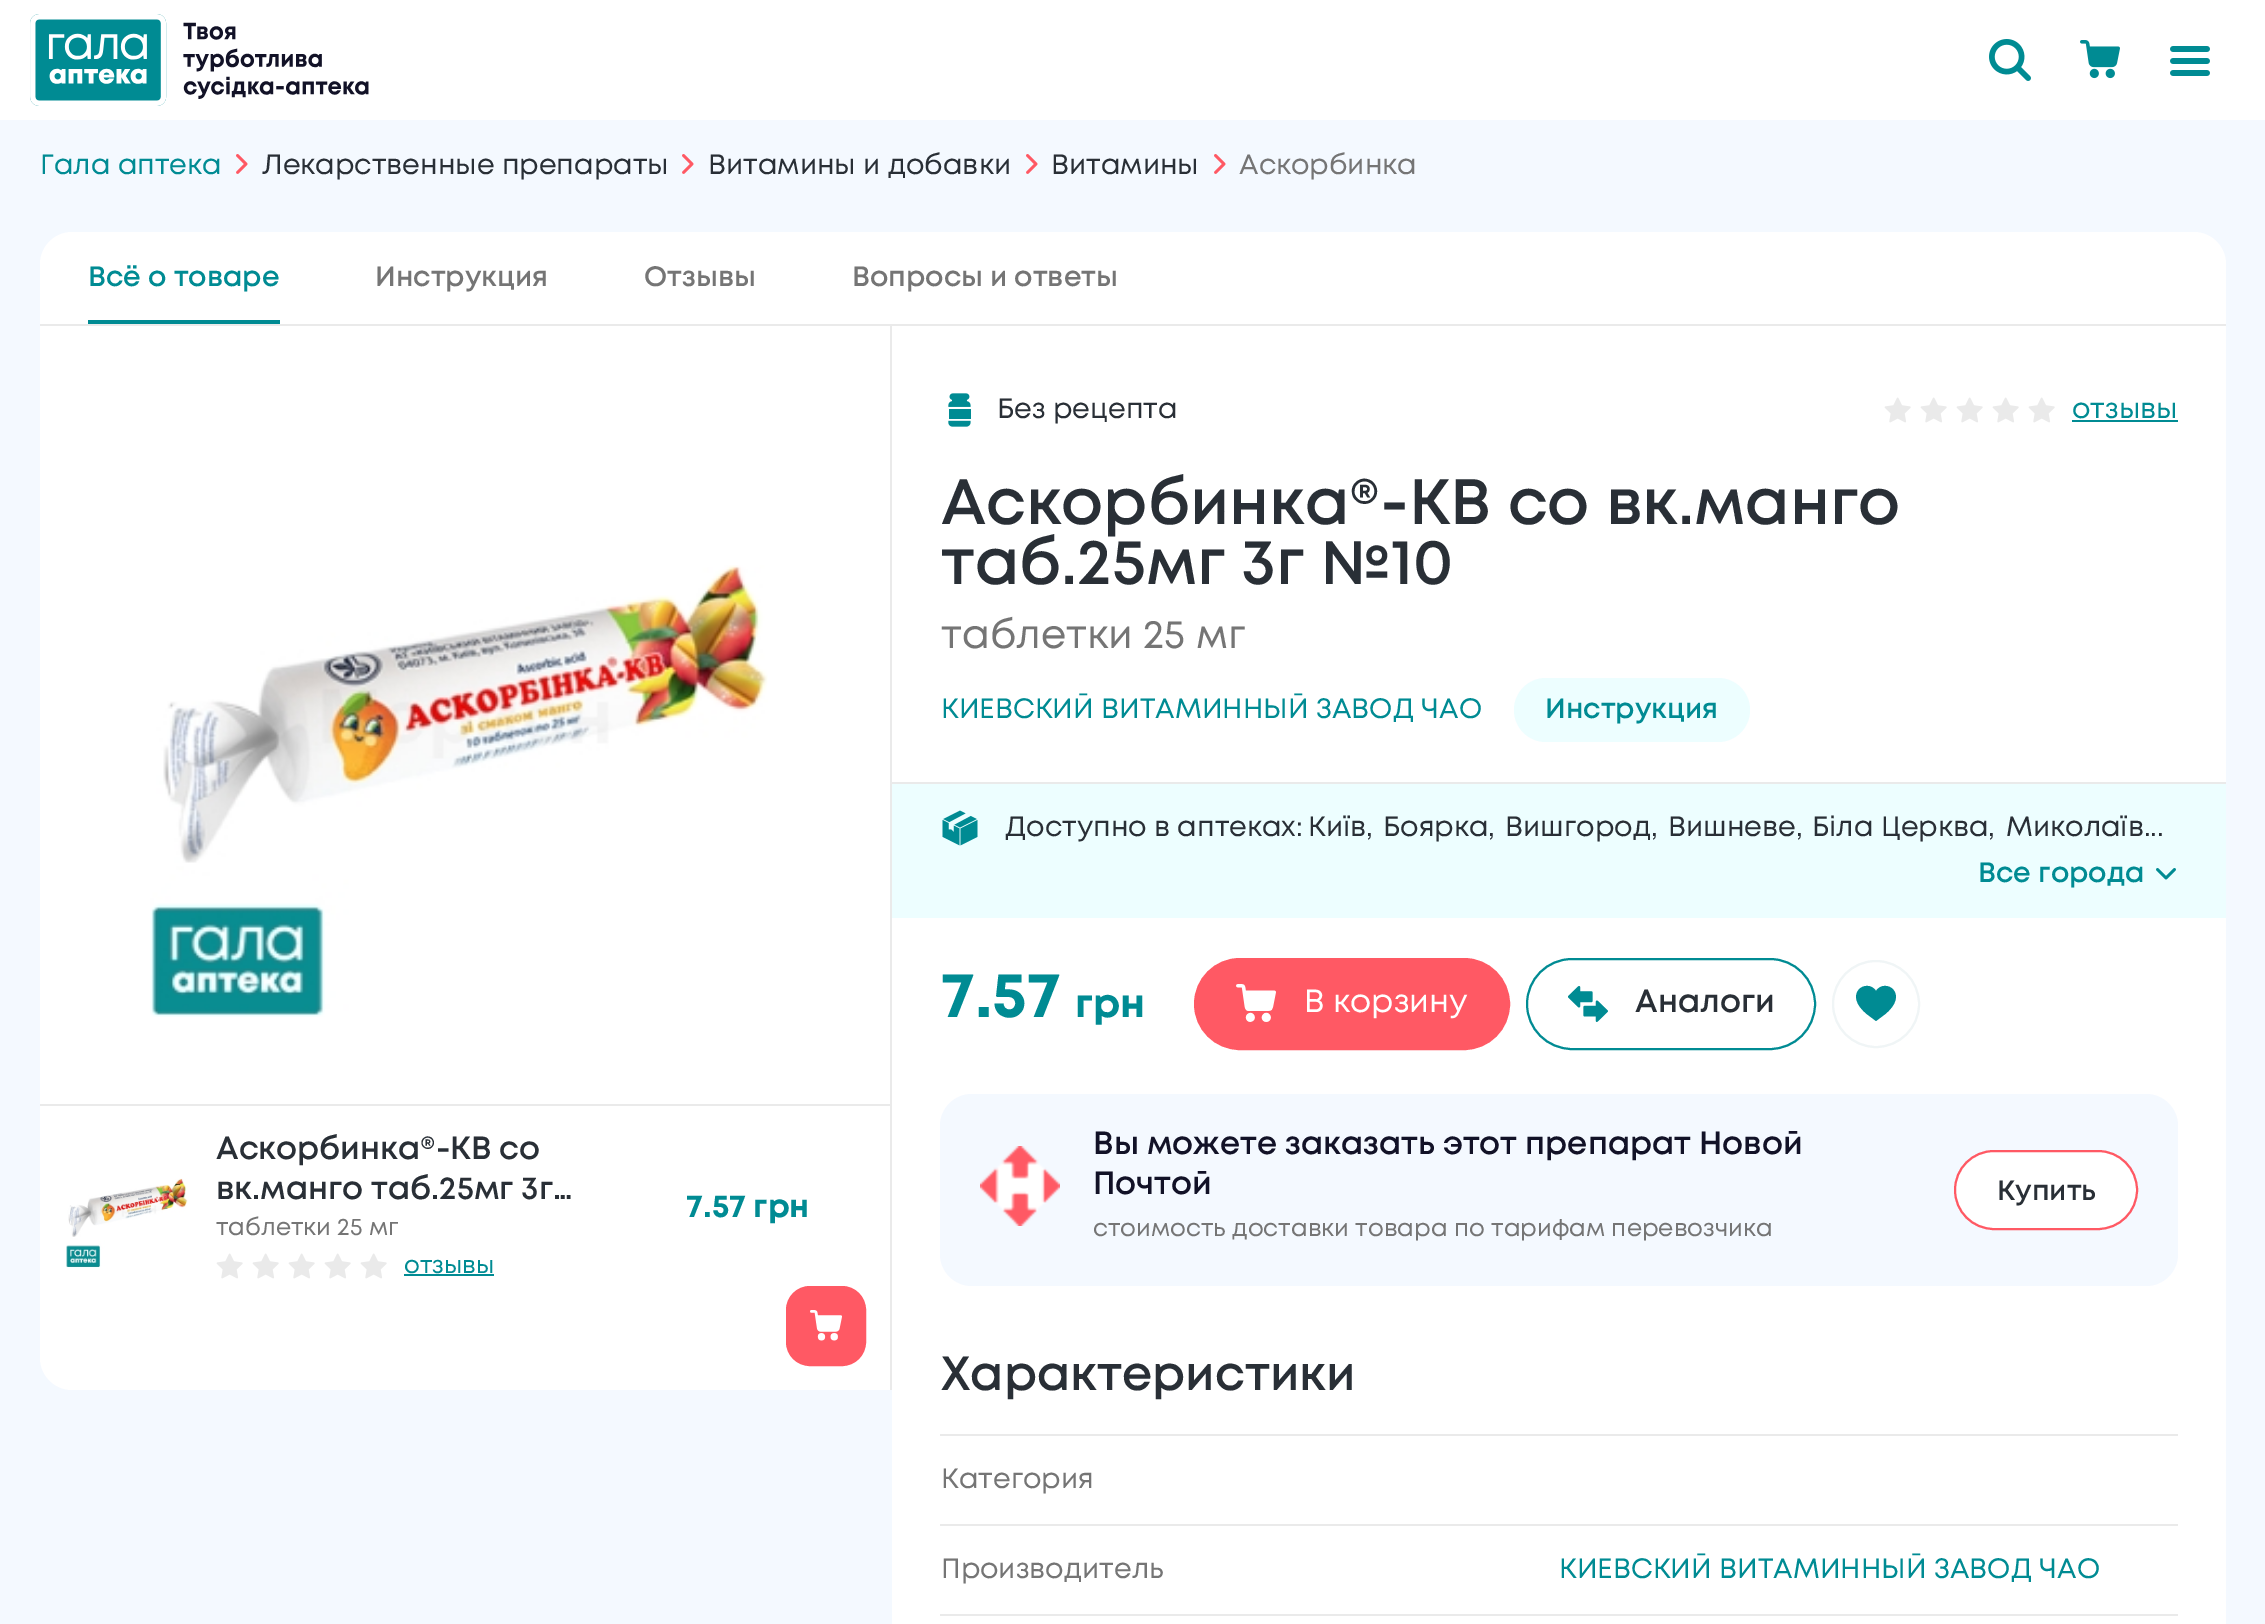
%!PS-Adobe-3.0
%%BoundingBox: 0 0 2265 1624
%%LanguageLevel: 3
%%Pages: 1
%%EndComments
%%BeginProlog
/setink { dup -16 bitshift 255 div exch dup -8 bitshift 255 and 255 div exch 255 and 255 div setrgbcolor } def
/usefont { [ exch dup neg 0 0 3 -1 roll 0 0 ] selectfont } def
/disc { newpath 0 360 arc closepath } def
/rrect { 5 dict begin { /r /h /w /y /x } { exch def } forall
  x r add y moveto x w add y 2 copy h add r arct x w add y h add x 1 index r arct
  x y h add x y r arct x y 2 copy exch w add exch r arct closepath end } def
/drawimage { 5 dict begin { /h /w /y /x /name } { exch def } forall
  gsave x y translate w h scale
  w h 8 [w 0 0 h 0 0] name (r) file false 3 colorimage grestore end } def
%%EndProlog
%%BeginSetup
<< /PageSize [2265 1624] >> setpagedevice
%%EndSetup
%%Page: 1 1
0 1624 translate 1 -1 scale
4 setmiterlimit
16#F4F9FF setink
0 0 2265 1624 rectfill
16#FFFFFF setink
0 0 2265 120 rectfill
(img1.raw) 30 14 339 92 drawimage
(img2.raw) 1989 39 42 42 drawimage
(img3.raw) 2080 40 40 39 drawimage
(img4.raw) 2170 46 40 30 drawimage
/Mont-Regular 28 usefont
16#008B93 setink
40 174 moveto (Гала аптека) show
(img5.raw) 236 154 12 20 drawimage
16#292F36 setink
262 174 moveto (Лекарственные препараты) show
(img5.raw) 682 154 12 20 drawimage
708 174 moveto (Витамины и добавки) show
(img5.raw) 1026 154 12 20 drawimage
1051 174 moveto (Витамины) show
(img5.raw) 1214 154 12 20 drawimage
16#757575 setink
1239 174 moveto (Аскорбинка) show
16#FFFFFF setink
72 232 moveto 2194 232 lineto 2211.5 232 2226 246.5 2226 264 curveto 2226 326 lineto 40 326 lineto 40 264 lineto 40 246.5 54.5 232 72 232 curveto closepath fill
16#EAEAEA setink
40 324 2186 2 rectfill
/Mont-SemiBold 28 usefont
16#008B93 setink
88 286 moveto (Всё о товаре) show
88 320 192 4 rectfill
16#757575 setink
[
    [(Инструкция) 375 286]
    [(Отзывы) 644 286]
    [(Вопросы и ответы) 852 286]
] { aload pop moveto show } forall
16#FFFFFF setink
40 326 moveto 892 326 lineto 892 1390 lineto 72 1390 lineto 54.5 1390 40 1375.5 40 1358 curveto closepath fill
16#EAEAEA setink
890 326 2 1064 rectfill
(img6.raw) 150 565 618 452 drawimage
40 1104 850 2 rectfill
(img7.raw) 66 1178 122 90 drawimage
/Mont-SemiBold 32 usefont
16#292F36 setink
216 1159 moveto (Аскорбинка®-КВ со) show
216 1199 moveto (вк.манго таб.25мг 3г…) show
/Mont-Regular 24 usefont
16#757575 setink
216 1235 moveto (таблетки 25 мг) show
(img8.raw) 216 1253 27 26 drawimage
(img8.raw) 252 1253 27 26 drawimage
(img8.raw) 288 1253 27 26 drawimage
(img8.raw) 324 1253 27 26 drawimage
(img8.raw) 360 1253 27 26 drawimage
16#008B93 setink
404 1273 moveto (отзывы) show
404 1274 90 2 rectfill
/Mont-Bold 32 usefont
686 1217 moveto (7.57 грн) show
16#FF5964 setink
787 1287 78 78 23 rrect gsave fill grestore
2 setlinewidth
stroke
(img9.raw) 810 1310 32 31 drawimage
16#FFFFFF setink
892 326 1334 1298 rectfill
(img10.raw) 948 393 23 34 drawimage
/Mont-Regular 28 usefont
16#292F36 setink
997 418 moveto (Без рецепта) show
(img8.raw) 1884 397 27 26 drawimage
(img8.raw) 1920 397 27 26 drawimage
(img8.raw) 1956 397 27 26 drawimage
(img8.raw) 1992 397 27 26 drawimage
(img8.raw) 2028 397 27 26 drawimage
16#008B93 setink
2072 418 moveto (отзывы) show
2072 420 106 2 rectfill
/Mont-SemiBold 64 usefont
16#292F36 setink
941 524 moveto (Аскорбинка®-КВ со вк.манго) show
941 584 moveto (таб.25мг 3г №10) show
/Mont-Regular 40 usefont
16#757575 setink
941 648 moveto (таблетки 25 мг) show
/Mont-Regular 28 usefont
16#008B93 setink
941 718 moveto (КИЕВСКИЙ ВИТАМИННЫЙ ЗАВОД ЧАО) show
16#EDFEFF setink
1514 678 236 64 32 rrect fill
/Mont-SemiBold 28 usefont
16#008B93 setink
1545 718 moveto (Инструкция) show
16#EDFEFF setink
892 784 1334 134 rectfill
16#EAEAEA setink
892 782 1334 2 rectfill
(img11.raw) 942 810 36 36 drawimage
/Mont-Regular 28 usefont
16#292F36 setink
[
    [(Доступно в аптеках:) 1005 836]
    [(Київ,) 1308 836]
    [(Боярка,) 1383 836]
    [(Вишгород,) 1505 836]
    [(Вишневе,) 1668 836]
    [(Біла Церква,) 1812 836]
    [(Миколаїв...) 2006 836]
] { aload pop moveto show } forall
/Mont-SemiBold 28 usefont
16#008B93 setink
1978 882 moveto (Все города) show
(img12.raw) 2156 868 20 12 drawimage
/Mont-Bold 64 usefont
941 1017 moveto (7.57) show
/Mont-Bold 40 usefont
1075 1017 moveto (грн) show
16#FF5964 setink
1195 959 314 90 45 rrect gsave fill grestore
stroke
(img13.raw) 1236 984 40 38 drawimage
/Mont-Regular 32 usefont
16#FFFFFF setink
1304 1012 moveto (В корзину) show
16#008B93 setink
1527 959 288 90 45 rrect stroke
(img14.raw) 1568 986 40 36 drawimage
/Mont-SemiBold 32 usefont
16#292F36 setink
1635 1012 moveto (Аналоги) show
16#F0F5F6 setink
1876 1004 43 disc stroke
16#008B93 setink
1876 1021 moveto 1868 1015 lineto 1841 994 1867 977 1876 991 curveto 1885 977 1911 994 1884 1015 curveto closepath fill
16#F4F9FF setink
940 1094 1238 192 32 rrect fill
(img15.raw) 980 1146 80 80 drawimage
16#121227 setink
1093 1154 moveto (Вы можете заказать этот препарат Новой) show
1093 1194 moveto (Почтой) show
16#FFFFFF setink
1955 1151 182 78 39 rrect gsave fill grestore
16#FF5964 setink
stroke
/Mont-SemiBold 28 usefont
16#292F36 setink
1997 1200 moveto (Купить) show
/Mont-Regular 24 usefont
16#757575 setink
1093 1236 moveto (стоимость доставки товара по тарифам перевозчика) show
16#EAEAEA setink
940 1434 1238 2 rectfill
/Mont-SemiBold 48 usefont
16#292F36 setink
941 1390 moveto (Характеристики) show
16#EAEAEA setink
940 1524 1238 2 rectfill
/Mont-Regular 28 usefont
16#757575 setink
941 1488 moveto (Категория) show
16#EAEAEA setink
940 1614 1238 2 rectfill
16#757575 setink
941 1578 moveto (Производитель) show
16#008B93 setink
1559 1578 moveto (КИЕВСКИЙ ВИТАМИННЫЙ ЗАВОД ЧАО) show
showpage
%%EOF
